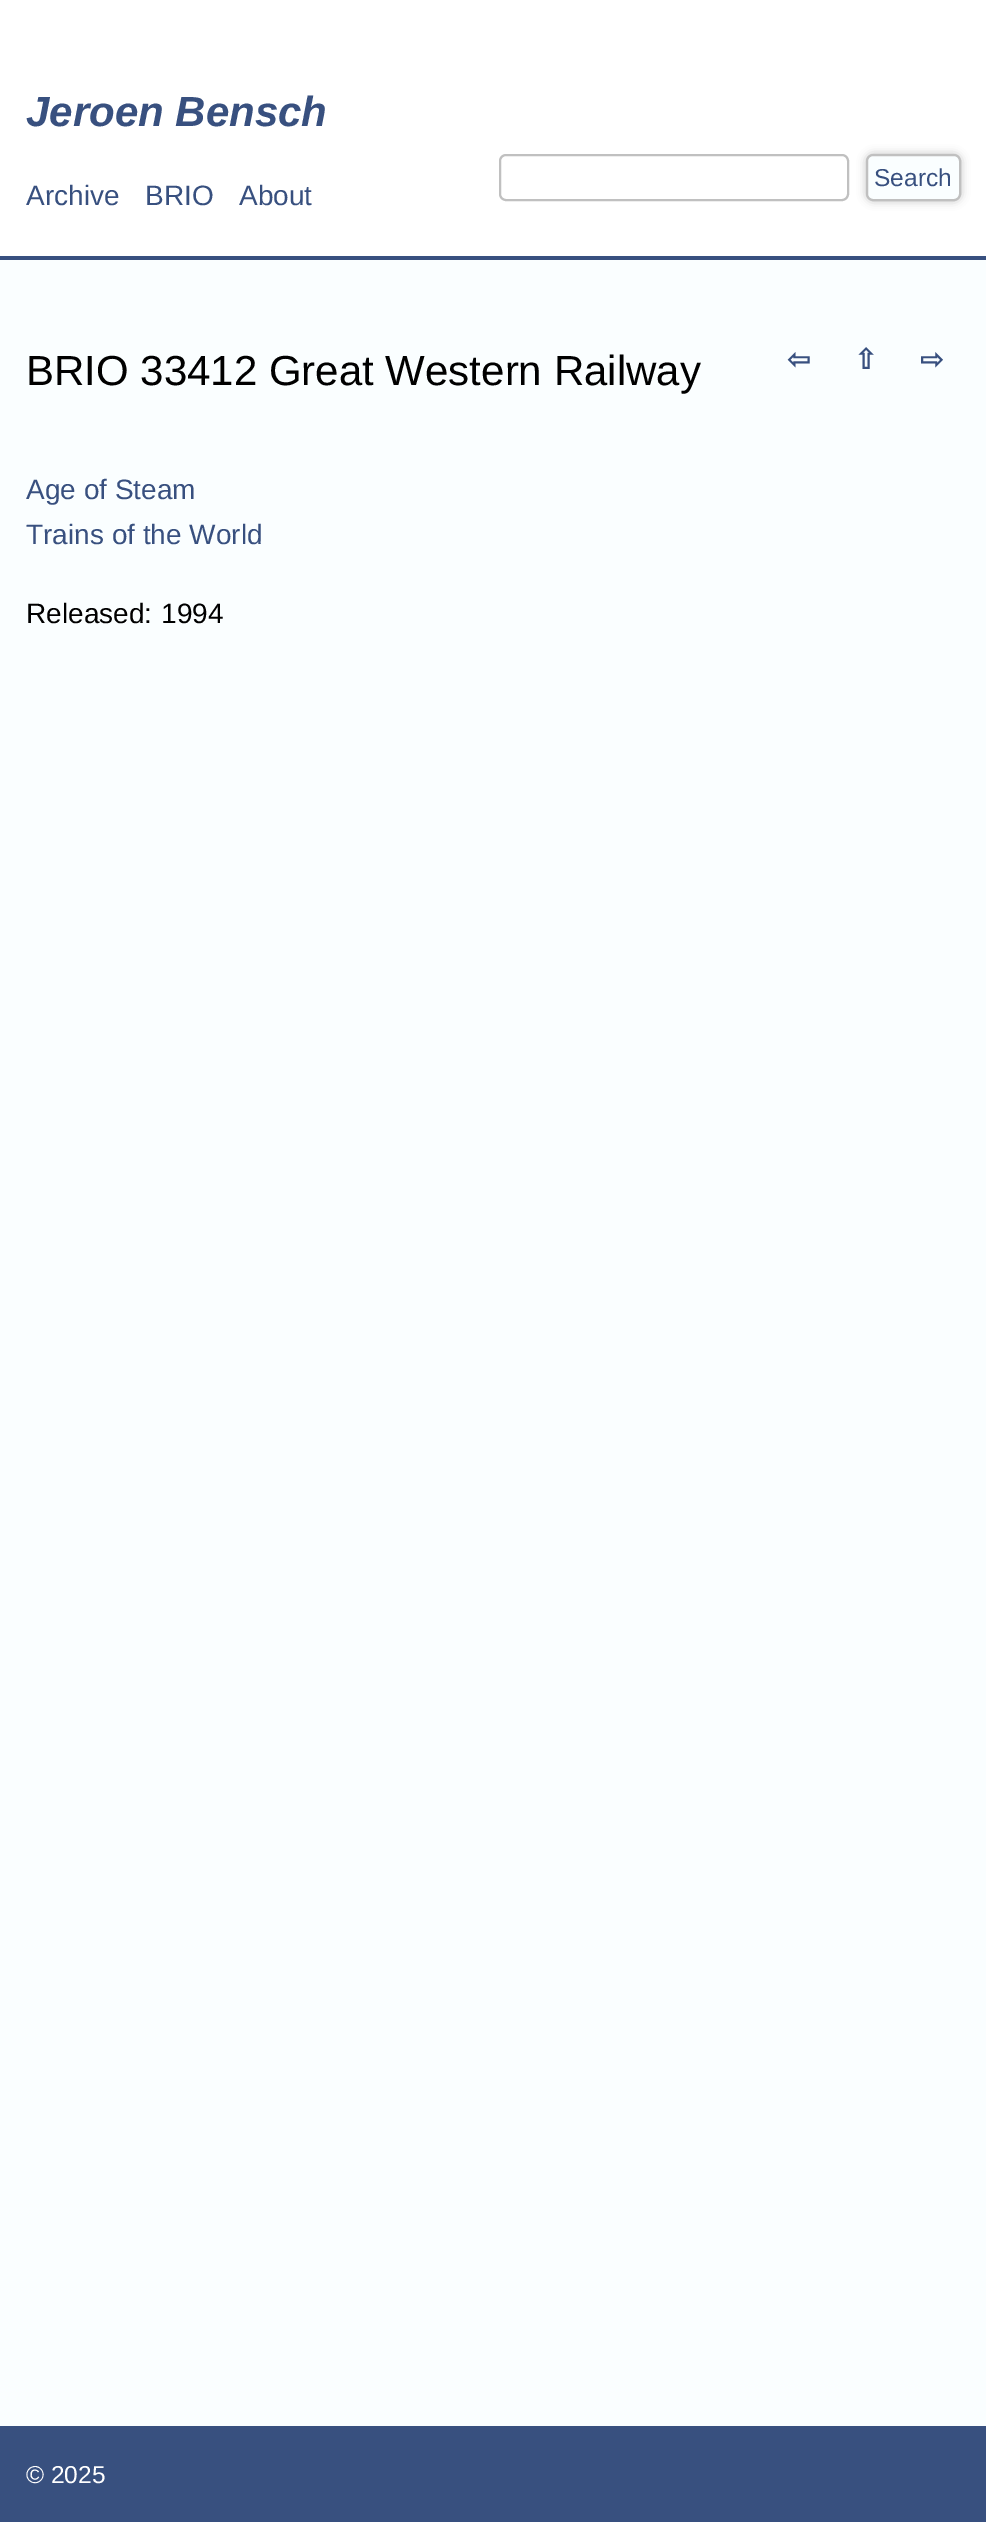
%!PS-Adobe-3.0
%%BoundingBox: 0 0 986 2522
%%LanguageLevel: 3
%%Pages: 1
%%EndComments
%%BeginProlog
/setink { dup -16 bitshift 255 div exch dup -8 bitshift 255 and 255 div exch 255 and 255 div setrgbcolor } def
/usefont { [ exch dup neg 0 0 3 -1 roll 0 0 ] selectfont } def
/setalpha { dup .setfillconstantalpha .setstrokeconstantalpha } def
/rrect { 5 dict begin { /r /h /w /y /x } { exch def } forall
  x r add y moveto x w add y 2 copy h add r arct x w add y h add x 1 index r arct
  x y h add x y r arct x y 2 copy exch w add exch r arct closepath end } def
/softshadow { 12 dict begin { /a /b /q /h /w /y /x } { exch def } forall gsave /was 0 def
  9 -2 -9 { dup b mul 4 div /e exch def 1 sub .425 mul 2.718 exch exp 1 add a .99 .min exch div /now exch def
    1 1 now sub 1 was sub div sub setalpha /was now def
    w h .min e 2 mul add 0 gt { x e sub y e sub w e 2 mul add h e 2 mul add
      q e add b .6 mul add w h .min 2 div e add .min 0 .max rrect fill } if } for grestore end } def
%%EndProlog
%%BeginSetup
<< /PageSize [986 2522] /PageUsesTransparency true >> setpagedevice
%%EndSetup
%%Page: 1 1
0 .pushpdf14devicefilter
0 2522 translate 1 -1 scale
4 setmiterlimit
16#FAFEFF setink
0 0 986 2522 rectfill
16#FFFFFF setink
0 0 986 256 rectfill
16#38507F setink
0 256 986 4 rectfill
/LiberationSans-BoldItalic 42 usefont
26 126 moveto (Jeroen Bensch) show
/LiberationSans-Regular 28 usefont
[
    [(Archive) 26 205]
    [(BRIO) 145 205]
    [(About) 239 205]
] { aload pop moveto show } forall
16#C0C0C0 setink
2 setlinewidth
500 155 348 45 6 rrect stroke
866 154 95 47 7 4.5 1 softshadow
16#FAFEFF setink
867 155 93 45 6 rrect gsave fill grestore
16#C0C0C0 setink
stroke
/LiberationSans-Regular 24.5 usefont
16#38507F setink
874 186 moveto (Search) show
/LiberationSans-Regular 42 usefont
16#000000 setink
26 385 moveto (BRIO 33412 Great Western Railway) show
/DejaVuSans-Bold 28 usefont
16#38507F setink
[
    [(⇦) 787 369]
    [(⇧) 854 369]
    [(⇨) 920 369]
] { aload pop moveto show } forall
/LiberationSans-Regular 28 usefont
26 499 moveto (Age of Steam) show
26 544 moveto (Trains of the World) show
16#000000 setink
26 623 moveto (Released:) show
161 623 moveto (1994) show
16#38507F setink
0 2426 986 96 rectfill
/LiberationSans-Regular 24.5 usefont
16#FFFFFF setink
26 2483 moveto (© 2025) show
.poppdf14devicefilter showpage
%%EOF
